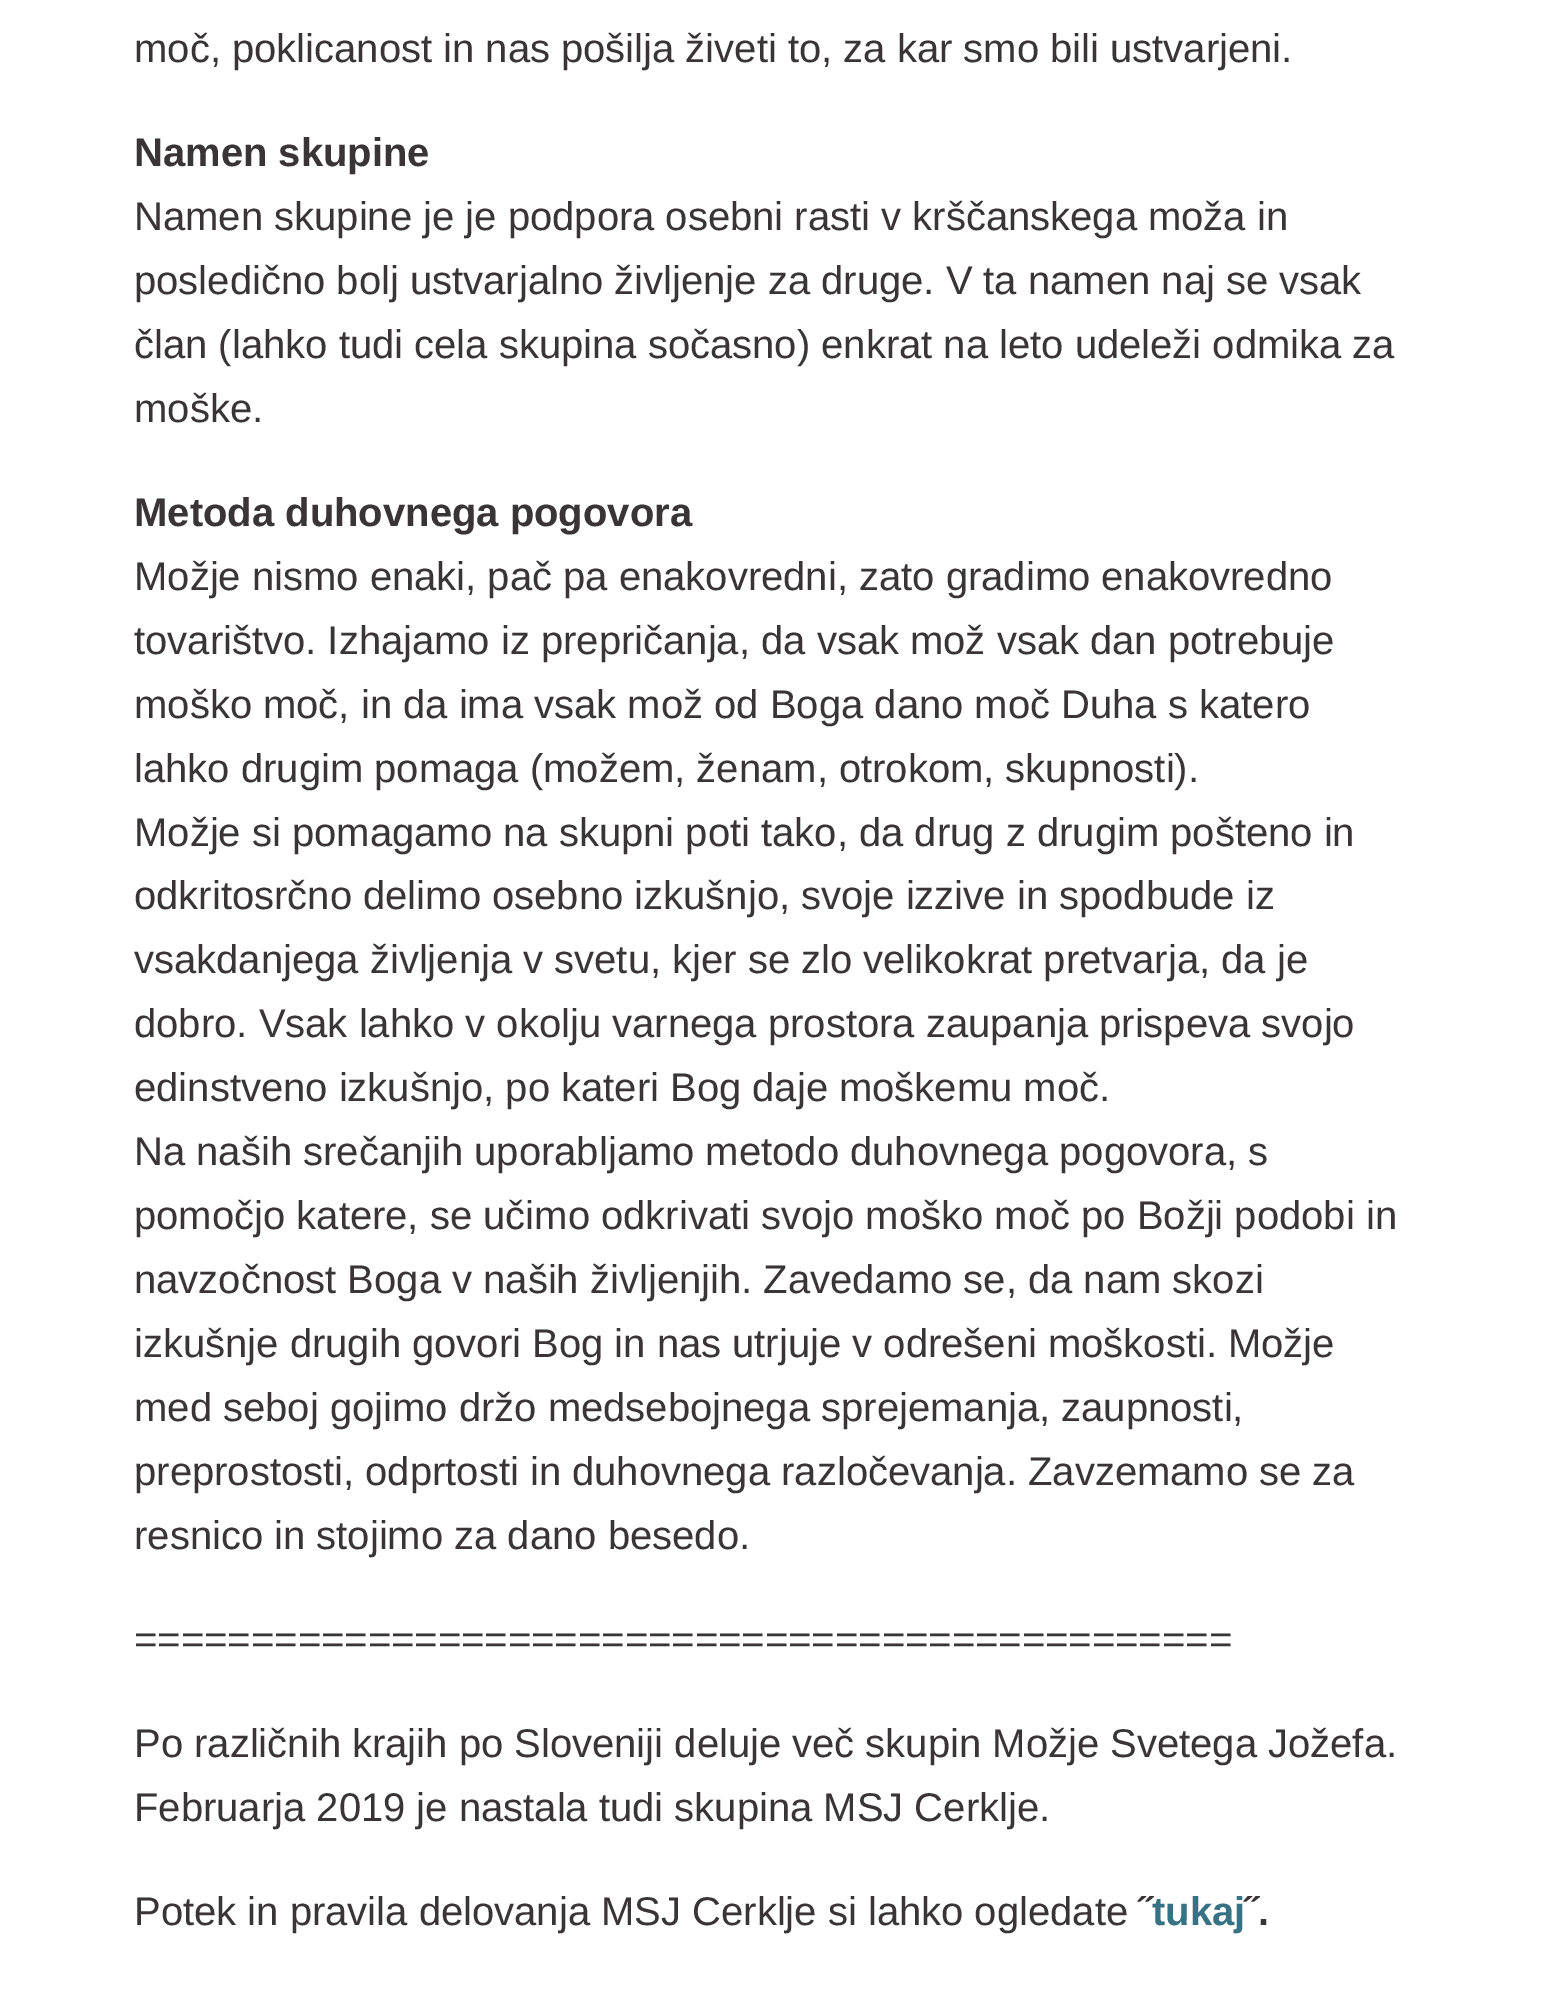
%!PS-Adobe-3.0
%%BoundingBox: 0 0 1541 2015
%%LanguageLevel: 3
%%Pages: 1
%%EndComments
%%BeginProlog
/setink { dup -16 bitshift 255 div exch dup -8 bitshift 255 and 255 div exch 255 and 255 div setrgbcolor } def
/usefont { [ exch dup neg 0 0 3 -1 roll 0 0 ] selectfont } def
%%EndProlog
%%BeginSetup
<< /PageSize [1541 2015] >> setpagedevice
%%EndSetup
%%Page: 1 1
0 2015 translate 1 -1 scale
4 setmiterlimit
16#FFFFFF setink
0 0 1541 2015 rectfill
/LiberationSans-Regular 40 usefont
16#393536 setink
134 62 moveto (moč, poklicanost in nas pošilja živeti to, za kar smo bili ustvarjeni.) show
/LiberationSans-Bold 40 usefont
134 166 moveto (Namen skupine) show
/LiberationSans-Regular 40 usefont
[
    [(Namen skupine je je podpora osebni rasti v krščanskega moža in) 134 230]
    [(posledično bolj ustvarjalno življenje za druge. V ta namen naj se vsak) 134 294]
    [(član \(lahko tudi cela skupina sočasno\) enkrat na leto udeleži odmika za) 134 358]
    [(moške.) 134 422]
] { aload pop moveto show } forall
/LiberationSans-Bold 40 usefont
134 526 moveto (Metoda duhovnega pogovora) show
/LiberationSans-Regular 40 usefont
[
    [(Možje nismo enaki, pač pa enakovredni, zato gradimo enakovredno) 134 590]
    [(tovarištvo. Izhajamo iz prepričanja, da vsak mož vsak dan potrebuje) 134 654]
    [(moško moč, in da ima vsak mož od Boga dano moč Duha s katero) 134 718]
    [(lahko drugim pomaga \(možem, ženam, otrokom, skupnosti\).) 134 782]
    [(Možje si pomagamo na skupni poti tako, da drug z drugim pošteno in) 134 846]
    [(odkritosrčno delimo osebno izkušnjo, svoje izzive in spodbude iz) 134 909]
    [(vsakdanjega življenja v svetu, kjer se zlo velikokrat pretvarja, da je) 134 973]
    [(dobro. Vsak lahko v okolju varnega prostora zaupanja prispeva svojo) 134 1037]
    [(edinstveno izkušnjo, po kateri Bog daje moškemu moč.) 134 1101]
    [(Na naših srečanjih uporabljamo metodo duhovnega pogovora, s) 134 1165]
    [(pomočjo katere, se učimo odkrivati svojo moško moč po Božji podobi in) 134 1229]
    [(navzočnost Boga v naših življenjih. Zavedamo se, da nam skozi) 134 1293]
    [(izkušnje drugih govori Bog in nas utrjuje v odrešeni moškosti. Možje) 134 1357]
    [(med seboj gojimo držo medsebojnega sprejemanja, zaupnosti,) 134 1421]
    [(preprostosti, odprtosti in duhovnega razločevanja. Zavzemamo se za) 134 1485]
    [(resnico in stojimo za dano besedo.) 134 1549]
    [(===============================================) 134 1653]
    [(Po različnih krajih po Sloveniji deluje več skupin Možje Svetega Jožefa.) 134 1757]
    [(Februarja 2019 je nastala tudi skupina MSJ Cerklje.) 134 1821]
    [(Potek in pravila delovanja MSJ Cerklje si lahko ogledate) 134 1925]
] { aload pop moveto show } forall
/LiberationSans-Bold 40 usefont
1139 1925 moveto (˝) show
16#377284 setink
1152 1925 moveto (tukaj) show
16#393536 setink
1245 1925 moveto (˝.) show
showpage
%%EOF
